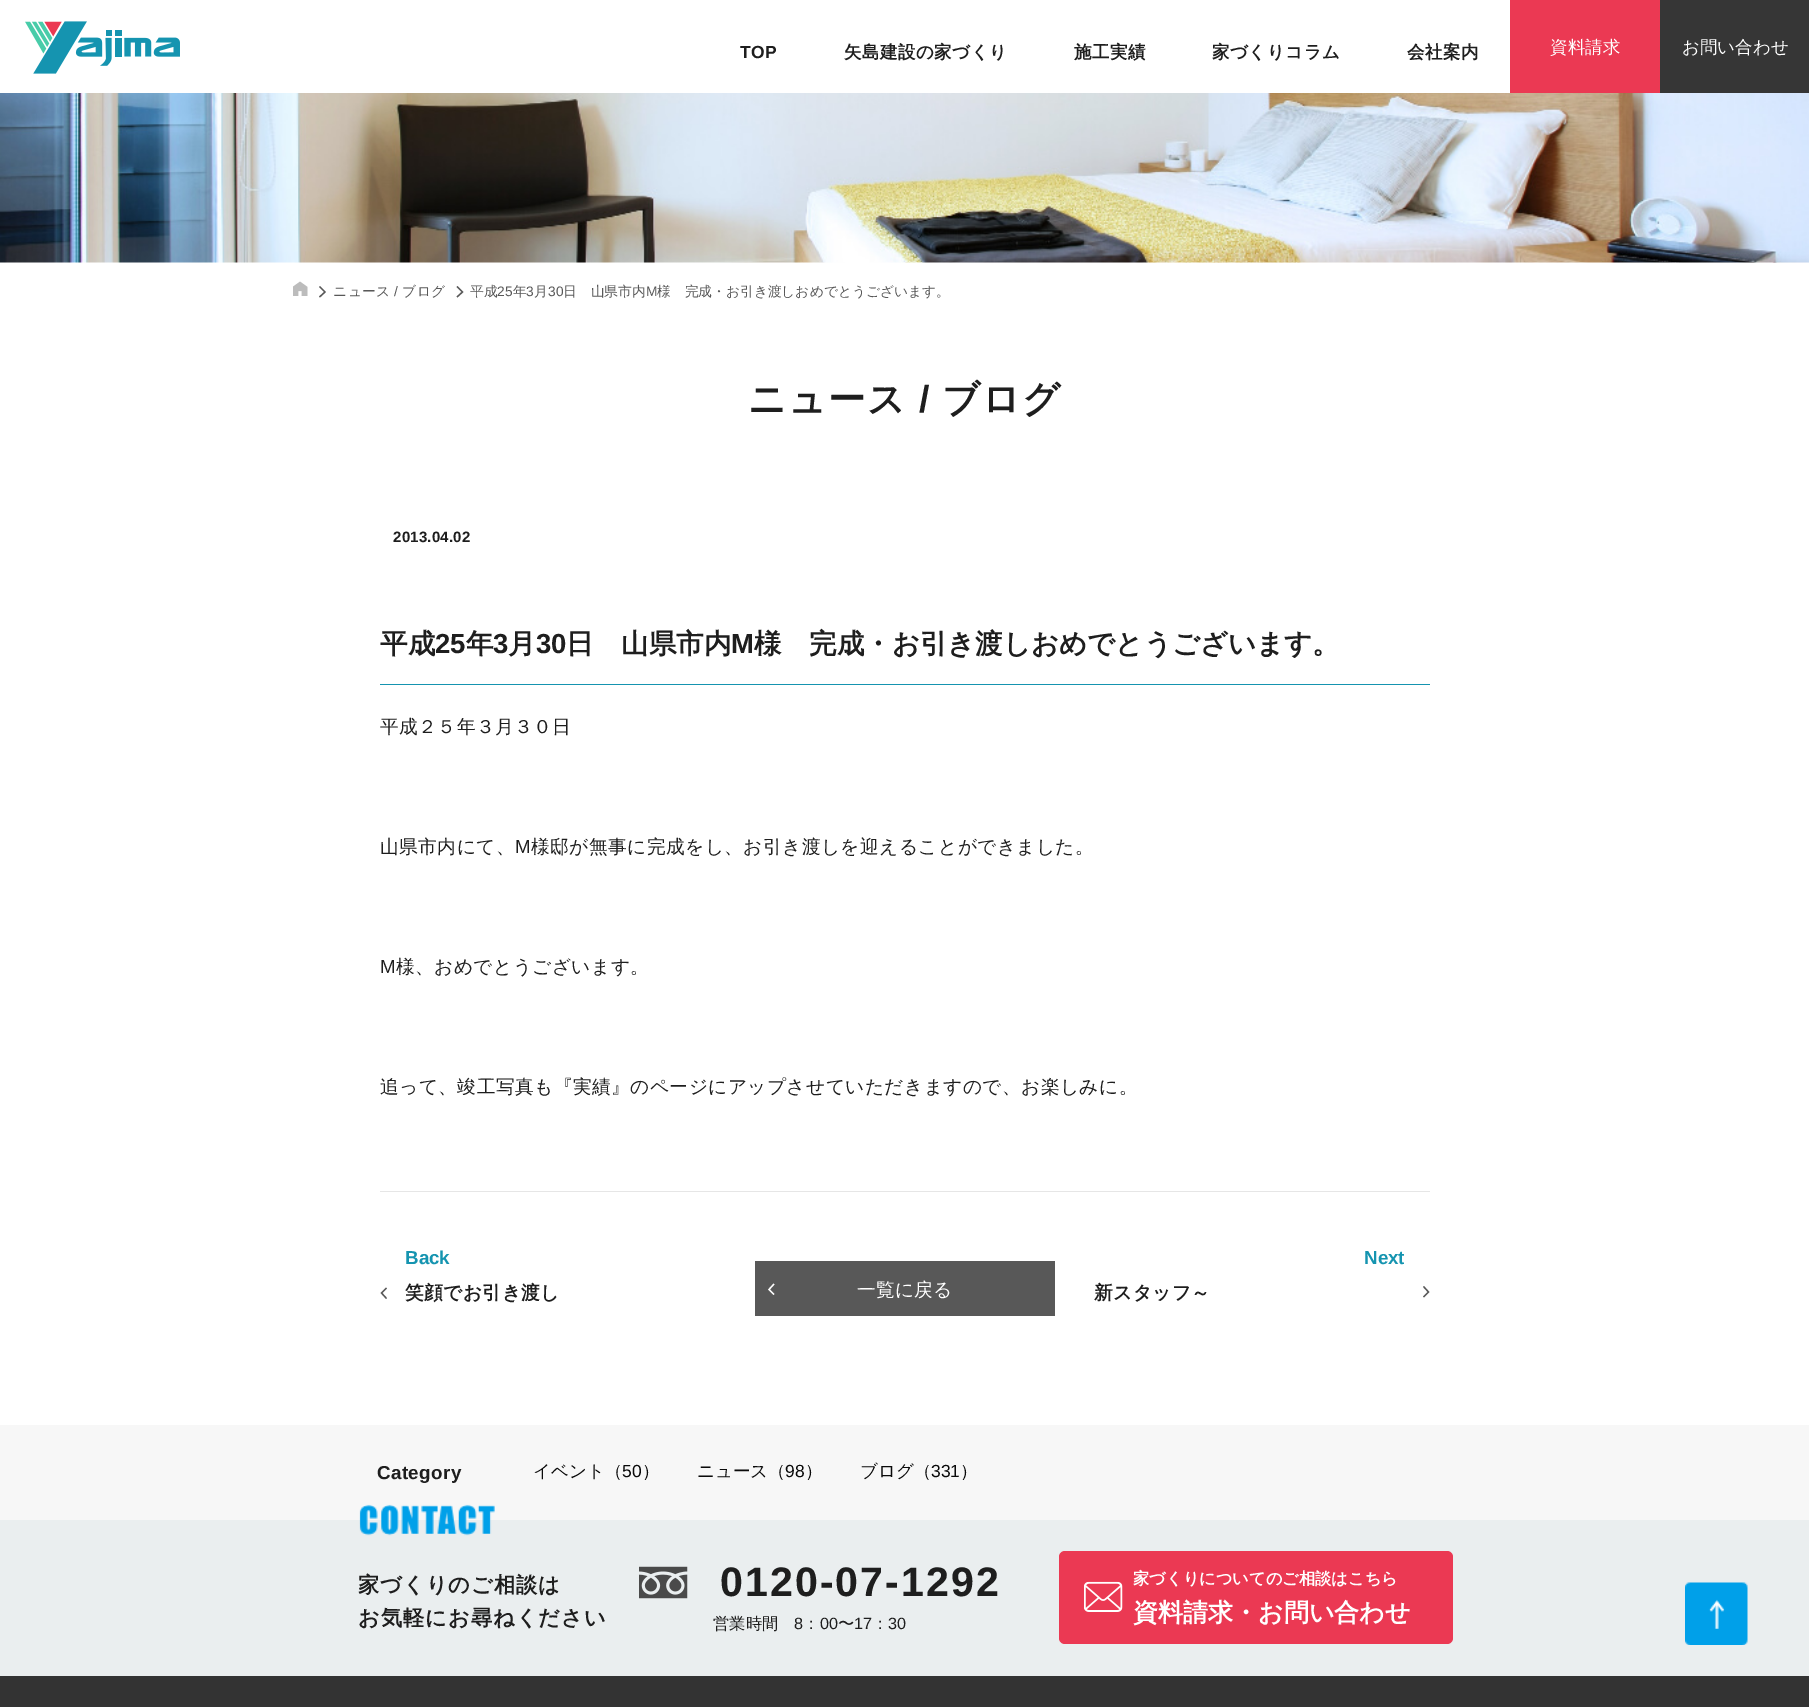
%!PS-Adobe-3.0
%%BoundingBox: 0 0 1809 1707
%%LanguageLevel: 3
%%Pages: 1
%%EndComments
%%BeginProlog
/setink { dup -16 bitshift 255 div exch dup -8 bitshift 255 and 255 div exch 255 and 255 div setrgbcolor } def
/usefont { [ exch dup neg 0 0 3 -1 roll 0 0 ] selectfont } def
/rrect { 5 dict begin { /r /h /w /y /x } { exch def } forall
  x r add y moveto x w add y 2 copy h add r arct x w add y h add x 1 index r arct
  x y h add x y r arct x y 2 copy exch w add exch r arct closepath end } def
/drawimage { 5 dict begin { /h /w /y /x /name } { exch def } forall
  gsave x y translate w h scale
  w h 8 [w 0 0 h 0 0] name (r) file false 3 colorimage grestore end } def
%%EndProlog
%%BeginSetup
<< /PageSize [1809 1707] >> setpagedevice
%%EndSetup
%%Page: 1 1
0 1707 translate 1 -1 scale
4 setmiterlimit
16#FFFFFF setink
0 0 1809 1707 rectfill
(img1.raw) 25 21 155 53 drawimage
/LiberationSans-Bold 17.5 usefont
16#1E1E1E setink
740 58 moveto 0.5 0 (TOP) ashow
/WenQuanYiZenHei-Bold 17.5 usefont
844 58 moveto 0.5 0 (矢島建設の家づくり) ashow
1074 58 moveto 0.5 0 (施工実績) ashow
1212 58 moveto 0.5 0 (家づくりコラム) ashow
1407 58 moveto 0.5 0 (会社案内) ashow
16#EB3953 setink
1510 0 150 93 rectfill
/WenQuanYiZenHei-Medium 17.5 usefont
16#FFFFFF setink
1550 53 moveto (資料請求) show
16#363636 setink
1660 0 149 93 rectfill
16#FFFFFF setink
1682 53 moveto (お問い合わせ) show
(img2.raw) 0 93 1809 170 drawimage
(img3.raw) 293 281 15 15 drawimage
16#585858 setink
1.3 setlinewidth
319.5 286.5 moveto 325 292 lineto 319.5 297 lineto stroke
/WenQuanYiZenHei-Medium 13.75 usefont
333 296 moveto 0.5 0 (ニュース) ashow
/LiberationSans-Regular 13.75 usefont
394 296 moveto 0.5 0 (/) ashow
/WenQuanYiZenHei-Medium 13.75 usefont
402 296 moveto 0.5 0 (ブログ) ashow
457 286.5 moveto 462.5 292 lineto 457 297 lineto stroke
470 296 moveto (平成) show
/LiberationSans-Regular 13.75 usefont
497 296 moveto (25) show
/WenQuanYiZenHei-Medium 13.75 usefont
513 296 moveto (年) show
/LiberationSans-Regular 13.75 usefont
526 296 moveto (3) show
/WenQuanYiZenHei-Medium 13.75 usefont
534 296 moveto (月) show
/LiberationSans-Regular 13.75 usefont
548 296 moveto (30) show
/WenQuanYiZenHei-Medium 13.75 usefont
563 296 moveto (日　山県市内) show
/LiberationSans-Regular 13.75 usefont
646 296 moveto (M) show
/WenQuanYiZenHei-Medium 13.75 usefont
657 296 moveto (様　完成・お引き渡しおめでとうございます。) show
/WenQuanYiZenHei-Bold 37.5 usefont
16#1E1E1E setink
748 412 moveto 1.5 0 (ニュース) ashow
/LiberationSans-Bold 37.5 usefont
919 412 moveto 1.5 0 (/) ashow
/WenQuanYiZenHei-Bold 37.5 usefont
942 412 moveto 1.5 0 (ブログ) ashow
/LiberationSans-Bold 15 usefont
393 542 moveto 0.25 0 (2013.04.02) ashow
16#1594B0 setink
380 684 1050 1 rectfill
/WenQuanYiZenHei-Bold 27.5 usefont
16#1E1E1E setink
380 653 moveto (平成) show
/LiberationSans-Bold 27.5 usefont
435 653 moveto (25) show
/WenQuanYiZenHei-Bold 27.5 usefont
466 653 moveto (年) show
/LiberationSans-Bold 27.5 usefont
493 653 moveto (3) show
/WenQuanYiZenHei-Bold 27.5 usefont
508 653 moveto (月) show
/LiberationSans-Bold 27.5 usefont
536 653 moveto (30) show
/WenQuanYiZenHei-Bold 27.5 usefont
566 653 moveto (日　山県市内) show
/LiberationSans-Bold 27.5 usefont
731 653 moveto (M) show
/WenQuanYiZenHei-Bold 27.5 usefont
754 653 moveto (様　完成・お引き渡しおめでとうございます。) show
/WenQuanYiZenHei-Medium 18.75 usefont
380 733 moveto 0.4 0 (平成２５年３月３０日) ashow
380 853 moveto 0.4 0 (山県市内にて、) ashow
/LiberationSans-Regular 18.75 usefont
515 853 moveto 0.4 0 (M) ashow
/WenQuanYiZenHei-Medium 18.75 usefont
531 853 moveto 0.4 0 (様邸が無事に完成をし、お引き渡しを迎えることができました。) ashow
/LiberationSans-Regular 18.75 usefont
380 973 moveto 0.4 0 (M) ashow
/WenQuanYiZenHei-Medium 18.75 usefont
396 973 moveto 0.4 0 (様、おめでとうございます。) ashow
380 1093 moveto 0.4 0 (追って、竣工写真も『実績』のページにアップさせていただきますので、お楽しみに。) ashow
16#E6E6E6 setink
380 1191 1050 1 rectfill
/LiberationSans-Bold 18.75 usefont
16#1594B0 setink
405 1264 moveto (Back) show
16#585858 setink
386.5 1298.5 moveto 381.5 1293 lineto 386.5 1288 lineto stroke
/WenQuanYiZenHei-Bold 18.75 usefont
16#1E1E1E setink
405 1299 moveto 0.4 0 (笑顔でお引き渡し) ashow
/LiberationSans-Bold 18.75 usefont
16#1594B0 setink
1364 1264 moveto (Next) show
/WenQuanYiZenHei-Bold 18.75 usefont
16#1E1E1E setink
1094 1299 moveto 0.4 0 (新スタッフ～) ashow
16#585858 setink
1423.5 1286.5 moveto 1428.5 1292 lineto 1423.5 1297 lineto stroke
755 1261 300 55 rectfill
16#FFFFFF setink
774 1294.5 moveto 769 1289.5 lineto 774 1284 lineto stroke
/WenQuanYiZenHei-Medium 18.75 usefont
857 1296 moveto 0.25 0 (一覧に戻る) ashow
16#F7F7F7 setink
0 1425 1809 95 rectfill
/LiberationSans-Bold 18.75 usefont
16#1E1E1E setink
377 1479 moveto 0.4 0 (Category) ashow
/WenQuanYiZenHei-Medium 17.5 usefont
16#0A0A0A setink
533 1477 moveto (イベント（) show
/LiberationSans-Regular 17.5 usefont
622 1477 moveto (50) show
/WenQuanYiZenHei-Medium 17.5 usefont
642 1477 moveto (）) show
697 1477 moveto (ニュース（) show
/LiberationSans-Regular 17.5 usefont
785 1477 moveto (98) show
/WenQuanYiZenHei-Medium 17.5 usefont
805 1477 moveto (）) show
860 1477 moveto (ブログ（) show
/LiberationSans-Regular 17.5 usefont
931 1477 moveto (331) show
/WenQuanYiZenHei-Medium 17.5 usefont
960 1477 moveto (）) show
16#EAEEEF setink
0 1520 1809 156 rectfill
(img4.raw) 359 1504 136 32 drawimage
/WenQuanYiZenHei-Bold 21.25 usefont
16#1E1E1E setink
358 1592 moveto 1 0 (家づくりのご相談は) ashow
358 1625 moveto 1 0 (お気軽にお尋ねください) ashow
(img5.raw) 639 1566 49 33 drawimage
/LiberationSans-Bold 41.25 usefont
720 1596 moveto 2 0 (0120-07-1292) ashow
/WenQuanYiZenHei-Medium 16.25 usefont
713 1629 moveto (営業時間) show
/LiberationSans-Regular 16.25 usefont
794 1629 moveto (8) show
/WenQuanYiZenHei-Medium 16.25 usefont
803 1629 moveto (：) show
/LiberationSans-Regular 16.25 usefont
820 1629 moveto (00) show
/WenQuanYiZenHei-Medium 16.25 usefont
838 1629 moveto (〜) show
/LiberationSans-Regular 16.25 usefont
854 1629 moveto (17) show
/WenQuanYiZenHei-Medium 16.25 usefont
872 1629 moveto (：) show
/LiberationSans-Regular 16.25 usefont
888 1629 moveto (30) show
16#EB3953 setink
1059 1551 394 93 6 rrect fill
/WenQuanYiZenHei-Bold 16.25 usefont
16#FFFFFF setink
1133 1584 moveto (家づくりについてのご相談はこちら) show
(img6.raw) 1084 1581 39 31 drawimage
/WenQuanYiZenHei-Bold 25 usefont
1133 1621 moveto (資料請求・お問い合わせ) show
16#333333 setink
0 1676 1809 31 rectfill
(img7.raw) 1685 1582 63 63 drawimage
showpage
%%EOF
